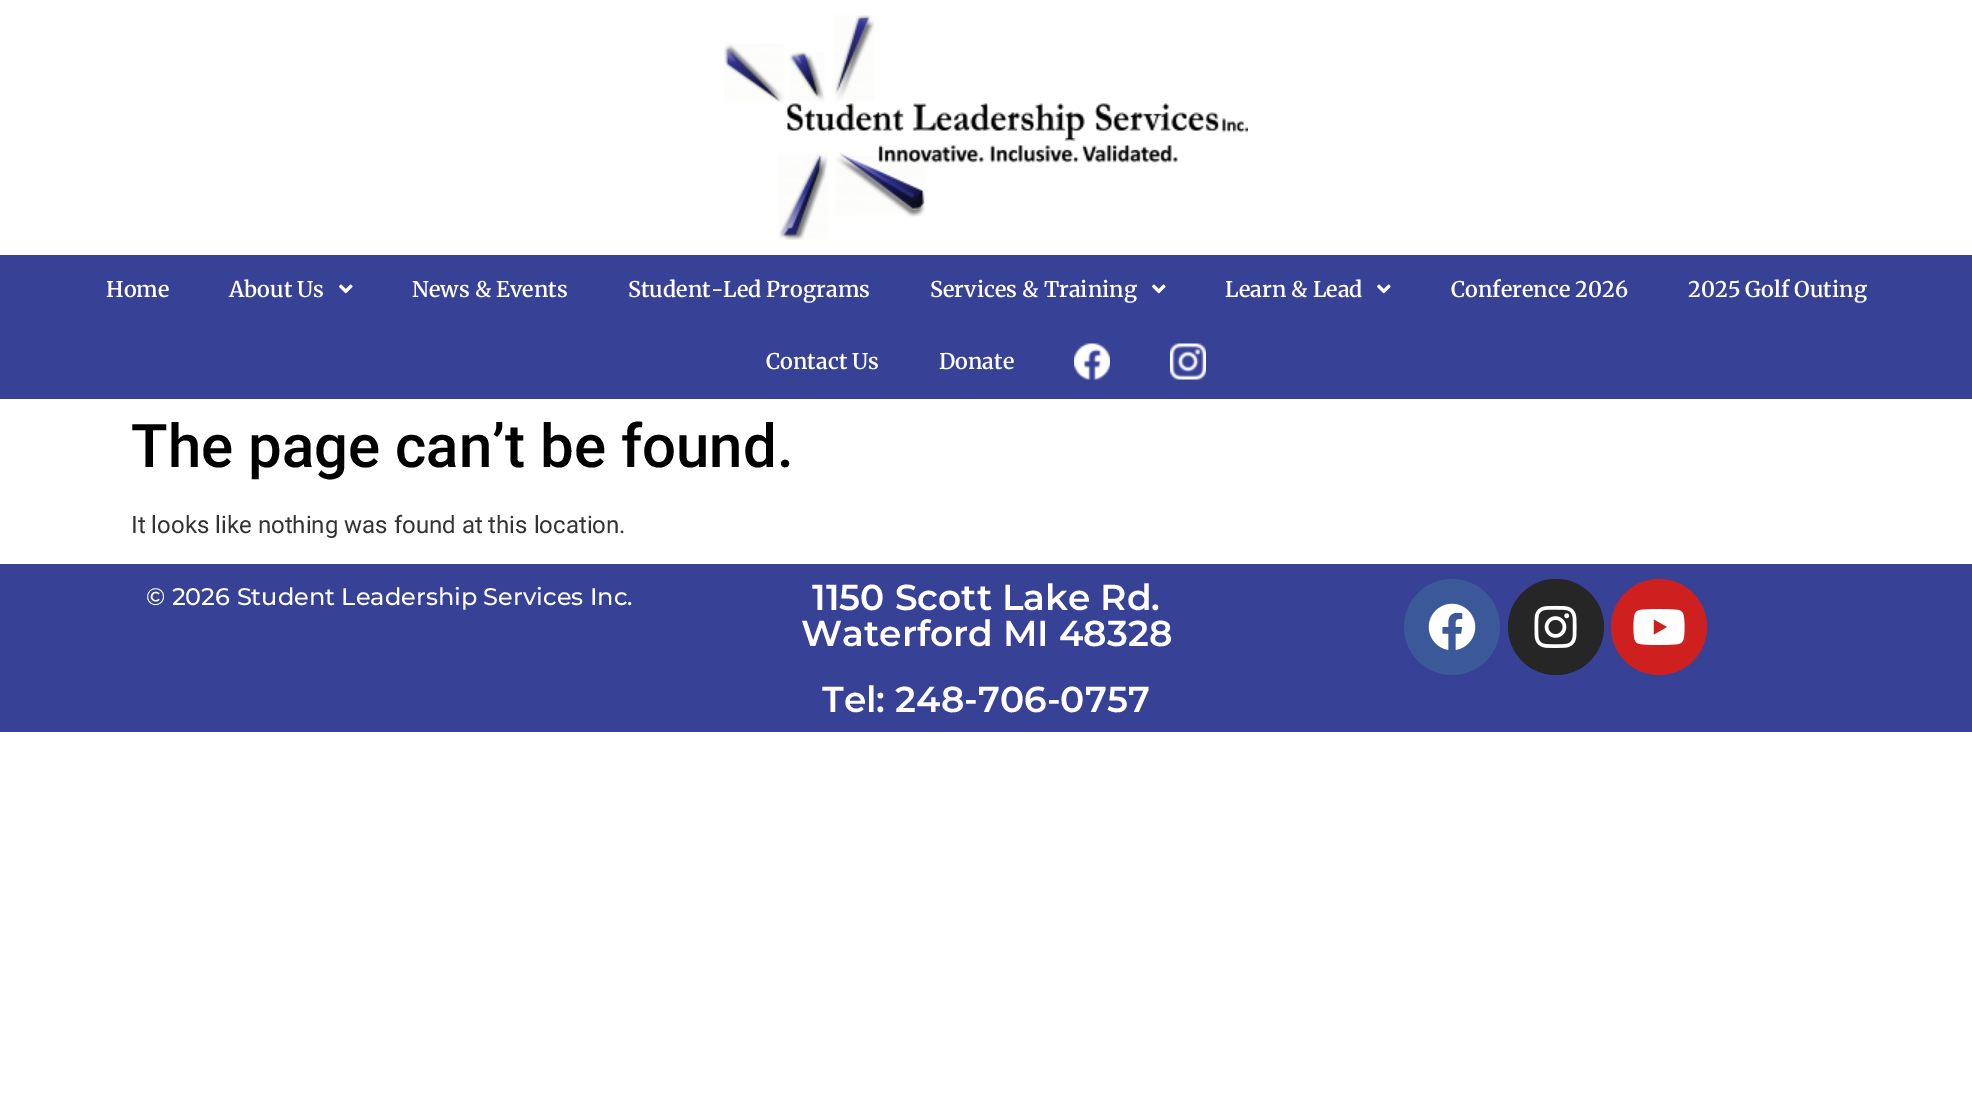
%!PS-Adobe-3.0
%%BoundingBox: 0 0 1972 1100
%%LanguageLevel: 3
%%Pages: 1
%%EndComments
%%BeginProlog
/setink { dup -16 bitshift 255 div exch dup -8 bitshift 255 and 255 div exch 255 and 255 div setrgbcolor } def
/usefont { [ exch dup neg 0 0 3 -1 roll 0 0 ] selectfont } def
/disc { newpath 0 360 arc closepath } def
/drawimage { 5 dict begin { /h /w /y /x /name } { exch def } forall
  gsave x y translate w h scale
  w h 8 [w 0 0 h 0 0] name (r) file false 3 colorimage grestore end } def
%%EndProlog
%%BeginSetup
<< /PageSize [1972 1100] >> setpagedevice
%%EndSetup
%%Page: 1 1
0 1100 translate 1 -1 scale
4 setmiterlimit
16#FFFFFF setink
0 0 1972 1100 rectfill
(img1.raw) 724 15 524 225 drawimage
16#374196 setink
0 255 1972 144 rectfill
/Merriweather-SemiBold 21.6 usefont
16#FFFFFF setink
106 297 moveto (Home) show
229 297 moveto (About Us) show
(img2.raw) 339 284 14 10 drawimage
[
    [(News & Events) 412 297]
    [(Student-Led Programs) 628 297]
    [(Services & Training) 930 297]
] { aload pop moveto show } forall
(img2.raw) 1152 284 14 10 drawimage
1225 297 moveto (Learn & Lead) show
(img2.raw) 1377 284 14 10 drawimage
[
    [(Conference 2026) 1451 297]
    [(2025 Golf Outing) 1688 297]
    [(Contact Us) 766 369]
    [(Donate) 939 369]
] { aload pop moveto show } forall
(img3.raw) 1074 343 36 37 drawimage
(img4.raw) 1170 343 36 37 drawimage
/Roboto-Medium 60 usefont
16#000000 setink
131 467 moveto (The page can’t be found.) show
/Roboto-Regular 24 usefont
16#333333 setink
131 533 moveto (It looks like nothing was found at this location.) show
16#374196 setink
0 564 1972 168 rectfill
/Montserrat-Medium 24 usefont
16#FFFFFF setink
146 605 moveto (© 2026 Student Leadership Services Inc.) show
/Montserrat-SemiBold 36 usefont
[
    [(1150 Scott Lake Rd.) 812 610]
    [(Waterford MI 48328) 801 646]
    [(Tel: 248-706-0757) 822 712]
] { aload pop moveto show } forall
16#3B5998 setink
1452 627 48 disc fill
(img5.raw) 1428 603 48 47 drawimage
16#262626 setink
1556 627 48 disc fill
(img6.raw) 1534 605 43 43 drawimage
16#CD201F setink
1659 627 48 disc fill
(img7.raw) 1633 609 52 36 drawimage
showpage
%%EOF
